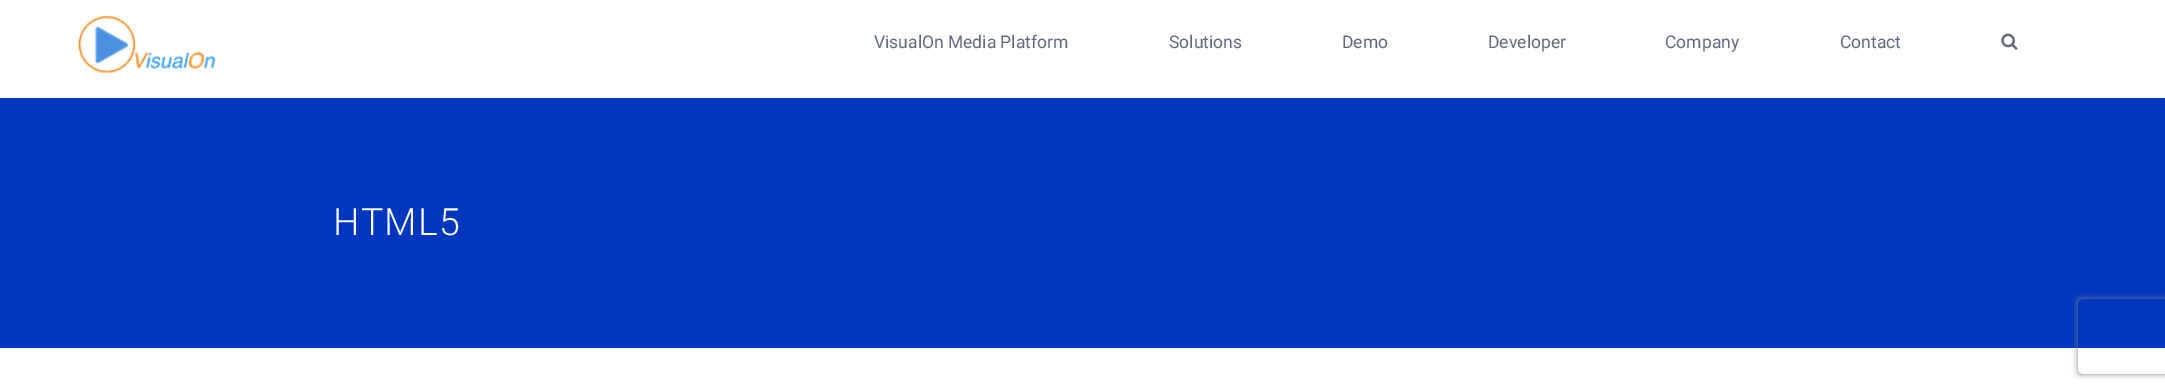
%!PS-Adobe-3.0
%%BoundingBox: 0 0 2165 391
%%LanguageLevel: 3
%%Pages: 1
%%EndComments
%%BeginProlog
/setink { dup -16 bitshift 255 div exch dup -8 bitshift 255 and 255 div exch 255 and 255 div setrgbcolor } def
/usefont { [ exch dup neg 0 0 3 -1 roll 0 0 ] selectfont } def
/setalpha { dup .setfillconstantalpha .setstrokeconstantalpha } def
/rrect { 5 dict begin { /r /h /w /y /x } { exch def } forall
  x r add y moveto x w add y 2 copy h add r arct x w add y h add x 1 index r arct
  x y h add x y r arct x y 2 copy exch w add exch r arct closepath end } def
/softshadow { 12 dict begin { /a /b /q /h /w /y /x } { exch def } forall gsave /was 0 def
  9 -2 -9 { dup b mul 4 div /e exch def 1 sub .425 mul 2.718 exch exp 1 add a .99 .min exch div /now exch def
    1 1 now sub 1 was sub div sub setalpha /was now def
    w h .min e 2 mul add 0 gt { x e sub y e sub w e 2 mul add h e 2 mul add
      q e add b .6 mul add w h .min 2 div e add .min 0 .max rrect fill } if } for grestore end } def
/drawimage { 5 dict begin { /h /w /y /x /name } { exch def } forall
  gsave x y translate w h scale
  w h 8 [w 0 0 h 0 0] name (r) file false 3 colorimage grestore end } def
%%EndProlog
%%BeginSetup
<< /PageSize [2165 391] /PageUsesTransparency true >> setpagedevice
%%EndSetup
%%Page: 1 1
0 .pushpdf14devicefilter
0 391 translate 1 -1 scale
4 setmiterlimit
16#FFFFFF setink
0 0 2165 391 rectfill
(img1.raw) 78 16 138 57 drawimage
/Roboto-Regular 17.5 usefont
16#616A7D setink
[
    [(VisualOn Media Platform) 874 48]
    [(Solutions) 1169 48]
    [(Demo) 1342 48]
    [(Developer) 1488 48]
    [(Company) 1665 48]
    [(Contact) 1840 48]
] { aload pop moveto show } forall
(img2.raw) 2001 33 17 17 drawimage
16#0137BF setink
0 98 2165 250 rectfill
/Roboto-Light 37.5 usefont
16#FFFFFF setink
333 235 moveto 1.25 0 (HTML5) ashow
gsave
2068 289 moveto 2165 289 lineto 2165 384 lineto 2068 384 lineto closepath 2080.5 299 moveto 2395.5 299 lineto 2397 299 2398 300 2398 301.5 curveto 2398 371.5 lineto 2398 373 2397 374 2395.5 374 curveto 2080.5 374 lineto 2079 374 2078 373 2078 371.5 curveto 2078 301.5 lineto 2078 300 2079 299 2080.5 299 curveto closepath eoclip newpath
16#808080 setink
2078 299 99 75 2.5 3 1 softshadow
grestore
.poppdf14devicefilter showpage
%%EOF
